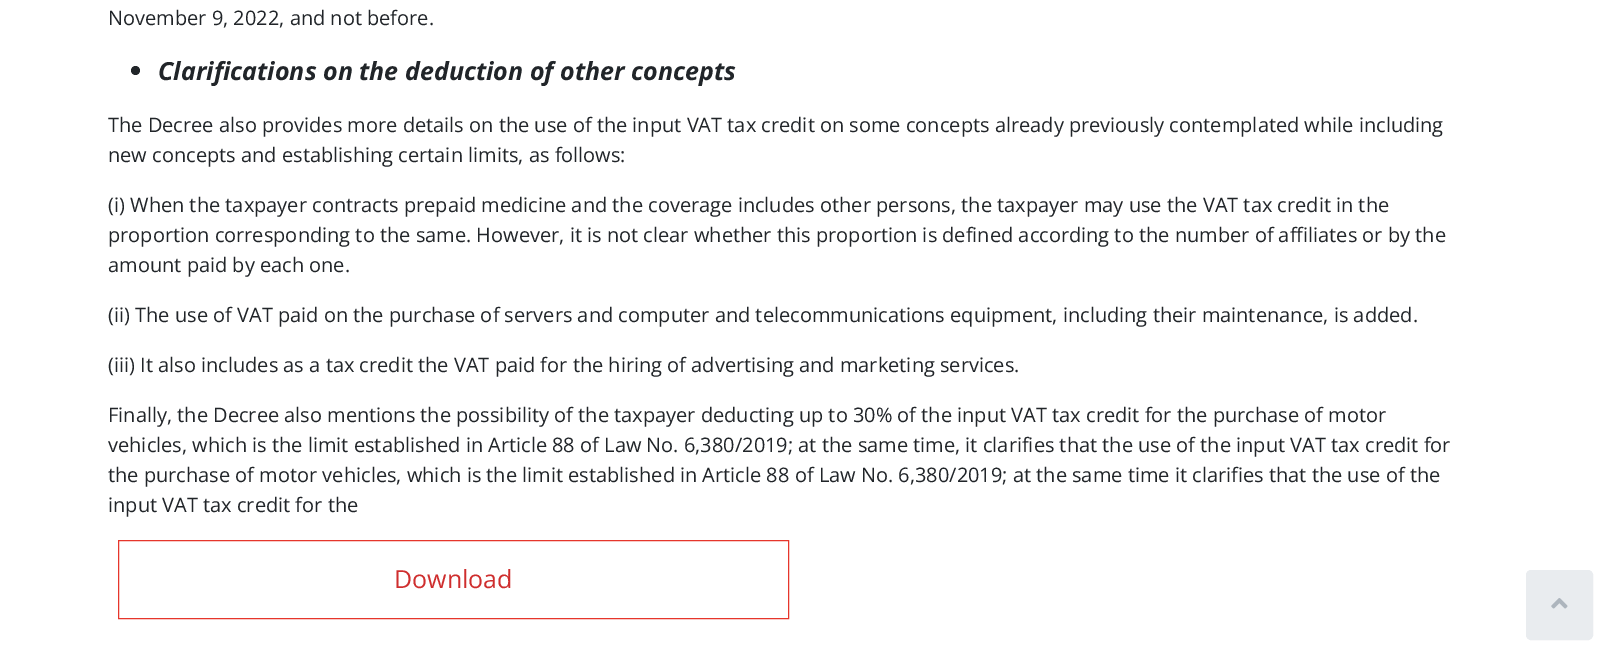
%!PS-Adobe-3.0
%%BoundingBox: 0 0 1612 659
%%LanguageLevel: 3
%%Pages: 1
%%EndComments
%%BeginProlog
/setink { dup -16 bitshift 255 div exch dup -8 bitshift 255 and 255 div exch 255 and 255 div setrgbcolor } def
/usefont { [ exch dup neg 0 0 3 -1 roll 0 0 ] selectfont } def
/disc { newpath 0 360 arc closepath } def
/rrect { 5 dict begin { /r /h /w /y /x } { exch def } forall
  x r add y moveto x w add y 2 copy h add r arct x w add y h add x 1 index r arct
  x y h add x y r arct x y 2 copy exch w add exch r arct closepath end } def
/drawimage { 5 dict begin { /h /w /y /x /name } { exch def } forall
  gsave x y translate w h scale
  w h 8 [w 0 0 h 0 0] name (r) file false 3 colorimage grestore end } def
%%EndProlog
%%BeginSetup
<< /PageSize [1612 659] >> setpagedevice
%%EndSetup
%%Page: 1 1
0 659 translate 1 -1 scale
4 setmiterlimit
16#FFFFFF setink
0 0 1612 659 rectfill
/OpenSans-Regular 20 usefont
16#212529 setink
108 25 moveto (November 9, 2022, and not before.) show
135.5 70.5 4.5 disc fill
/OpenSans-BoldItalic 25 usefont
158 80 moveto (Clarifications on the deduction of other concepts) show
/OpenSans-Regular 20 usefont
[
    [(The Decree also provides more details on the use of the input VAT tax credit on some concepts already previously contemplated while including) 108 132]
    [(new concepts and establishing certain limits, as follows:) 108 162]
    [(\(i\) When the taxpayer contracts prepaid medicine and the coverage includes other persons, the taxpayer may use the VAT tax credit in the) 108 212]
    [(proportion corresponding to the same. However, it is not clear whether this proportion is defined according to the number of affiliates or by the) 108 242]
    [(amount paid by each one.) 108 272]
    [(\(ii\) The use of VAT paid on the purchase of servers and computer and telecommunications equipment, including their maintenance, is added.) 108 322]
    [(\(iii\) It also includes as a tax credit the VAT paid for the hiring of advertising and marketing services.) 108 372]
    [(Finally, the Decree also mentions the possibility of the taxpayer deducting up to 30% of the input VAT tax credit for the purchase of motor) 108 422]
    [(vehicles, which is the limit established in Article 88 of Law No. 6,380/2019; at the same time, it clarifies that the use of the input VAT tax credit for) 108 452]
    [(the purchase of motor vehicles, which is the limit established in Article 88 of Law No. 6,380/2019; at the same time it clarifies that the use of the) 108 482]
    [(input VAT tax credit for the) 108 512]
] { aload pop moveto show } forall
16#E6362C setink
118.5 540.5 670 78 rectstroke
/OpenSans-Regular 25 usefont
16#CF2E2E setink
394 588 moveto (Download) show
16#E9ECEF setink
1526.5 570.5 66 69 4.5 rrect gsave fill grestore
stroke
(img1.raw) 1551 598 17 11 drawimage
showpage
%%EOF
